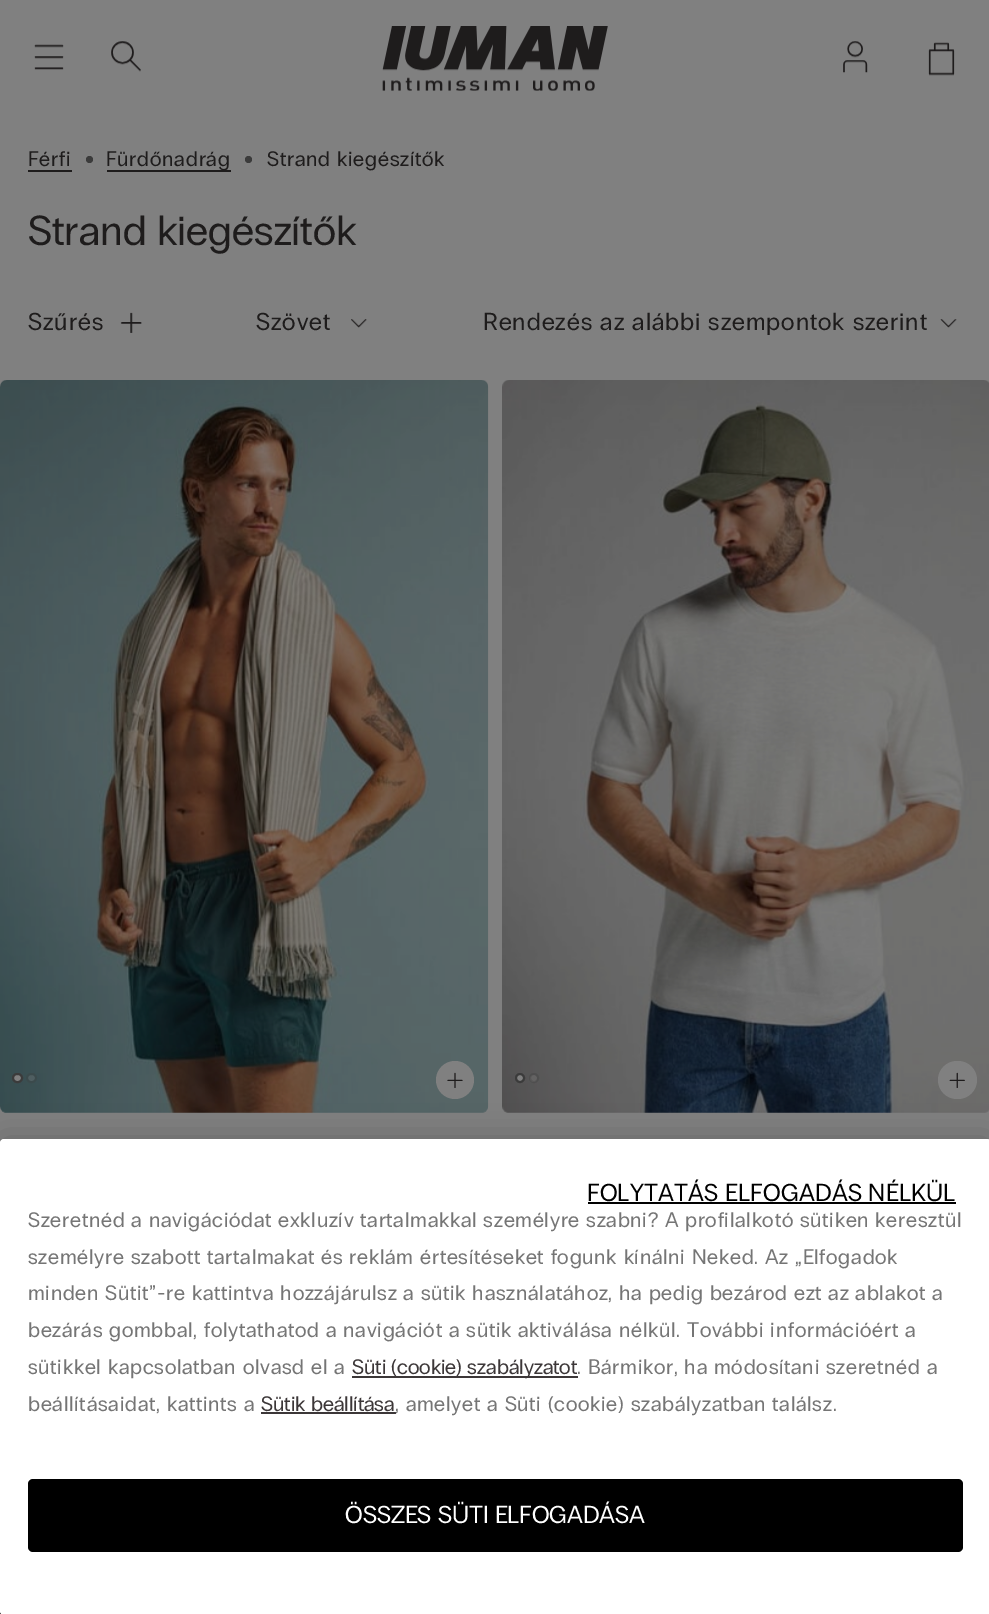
%!PS-Adobe-3.0
%%BoundingBox: 0 0 989 1614
%%LanguageLevel: 3
%%Pages: 1
%%EndComments
%%BeginProlog
/setink { dup -16 bitshift 255 div exch dup -8 bitshift 255 and 255 div exch 255 and 255 div setrgbcolor } def
/usefont { [ exch dup neg 0 0 3 -1 roll 0 0 ] selectfont } def
/setalpha { dup .setfillconstantalpha .setstrokeconstantalpha } def
/disc { newpath 0 360 arc closepath } def
/rrect { 5 dict begin { /r /h /w /y /x } { exch def } forall
  x r add y moveto x w add y 2 copy h add r arct x w add y h add x 1 index r arct
  x y h add x y r arct x y 2 copy exch w add exch r arct closepath end } def
/softshadow { 12 dict begin { /a /b /q /h /w /y /x } { exch def } forall gsave /was 0 def
  9 -2 -9 { dup b mul 4 div /e exch def 1 sub .425 mul 2.718 exch exp 1 add a .99 .min exch div /now exch def
    1 1 now sub 1 was sub div sub setalpha /was now def
    w h .min e 2 mul add 0 gt { x e sub y e sub w e 2 mul add h e 2 mul add
      q e add b .6 mul add w h .min 2 div e add .min 0 .max rrect fill } if } for grestore end } def
/drawimage { 5 dict begin { /h /w /y /x /name } { exch def } forall
  gsave x y translate w h scale
  w h 8 [w 0 0 h 0 0] name (r) file false 3 colorimage grestore end } def
%%EndProlog
%%BeginSetup
<< /PageSize [989 1614] /PageUsesTransparency true >> setpagedevice
%%EndSetup
%%Page: 1 1
0 .pushpdf14devicefilter
0 1614 translate 1 -1 scale
4 setmiterlimit
16#808080 setink
0 0 989 1614 rectfill
(img1.raw) 34 44 30 26 drawimage
(img2.raw) 111 41 30 31 drawimage
(img3.raw) 382 26 226 65 drawimage
(img4.raw) 843 41 25 32 drawimage
(img5.raw) 928 42 27 34 drawimage
/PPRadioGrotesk-Regular 21 usefont
16#1E1C1C setink
28 166 moveto 0.8 0 (Férfi) ashow
28 170 44 2 rectfill
16#3B3B3B setink
89.5 159.5 3.5 disc fill
16#1E1C1C setink
107 170 124 2 rectfill
106 166 moveto 0.8 0 (Fürdőnadrág) ashow
16#3B3B3B setink
248.5 159.5 3.5 disc fill
16#1E1C1C setink
267 166 moveto 0.8 0 (Strand kiegészítők) ashow
/PPRadioGrotesk-Regular 42 usefont
28 245 moveto (Strand kiegészítők) show
/PPRadioGrotesk-Regular 24.5 usefont
28 330 moveto 1 0 (Szűrés) ashow
(img6.raw) 120 312 22 21 drawimage
256 330 moveto 1 0 (Szövet) ashow
(img7.raw) 351 319 16 9 drawimage
483 330 moveto 1 0 (Rendezés az alábbi szempontok szerint) ashow
(img8.raw) 940 319 17 9 drawimage
(img9.raw) 0 380 489 733 drawimage
16#808080 setink
13 1074 9 8 4 rrect gsave fill grestore
16#3B3B3B setink
2 setlinewidth
stroke
16#4F5E61 setink
27 1074 9 8 4 rrect gsave fill grestore
16#3B4A4C setink
stroke
16#808080 setink
455 1080 19 disc fill
(img10.raw) 447 1072 16 16 drawimage
(img11.raw) 502 380 487 733 drawimage
520 1078 4 disc gsave fill grestore
16#3B3B3B setink
stroke
16#646363 setink
533.5 1078.5 3.5 disc fill
0.3 setalpha
16#3B3B3B setink
534 1078 4 disc stroke
1 setalpha
16#808080 setink
938 1061 39 38 19 rrect fill
(img12.raw) 949 1072 16 16 drawimage
16#1E1C1C setink
0 1611 2 3 rectfill
16#000000 setink
0 1139 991 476 4 16 0.2 softshadow
16#FFFFFF setink
0 1139 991 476 4 rrect fill
16#000000 setink
587 1201 moveto 0.25 0 (FOLYTATÁS ELFOGADÁS NÉLKÜL) ashow
588 1202 368 2 rectfill
/PPRadioGrotesk-Regular 21 usefont
16#757575 setink
28 1227 moveto 0.75 0 (Szeretnéd a navigációdat exkluzív tartalmakkal személyre szabni? A profilalkotó sütiken keresztül) ashow
28 1264 moveto 0.75 0 (személyre szabott tartalmakat és reklám értesítéseket fogunk kínálni Neked. Az „Elfogadok) ashow
28 1300 moveto 0.75 0 (minden Sütit”-re kattintva hozzájárulsz a sütik használatához, ha pedig bezárod ezt az ablakot a) ashow
28 1337 moveto 0.75 0 (bezárás gombbal, folytathatod a navigációt a sütik aktiválása nélkül. További információért a) ashow
28 1374 moveto 0.75 0 (sütikkel kapcsolatban olvasd el a) ashow
16#3C3738 setink
352 1376 226 2 rectfill
352 1374 moveto (Süti \(cookie\) szabályzatot) show
16#757575 setink
577 1374 moveto 0.75 0 (. Bármikor, ha módosítani szeretnéd a) ashow
28 1411 moveto 0.75 0 (beállításaidat, kattints a) ashow
16#3C3738 setink
261 1411 moveto (Sütik beállítása) show
261 1412 135 2 rectfill
16#757575 setink
395 1411 moveto 0.75 0 (, amelyet a Süti \(cookie\) szabályzatban találsz.) ashow
16#000000 setink
28 1479 935 73 5 rrect fill
/PPRadioGrotesk-Regular 24.5 usefont
16#FFFFFF setink
345 1523 moveto (ÖSSZES SÜTI ELFOGADÁSA) show
.poppdf14devicefilter showpage
%%EOF
